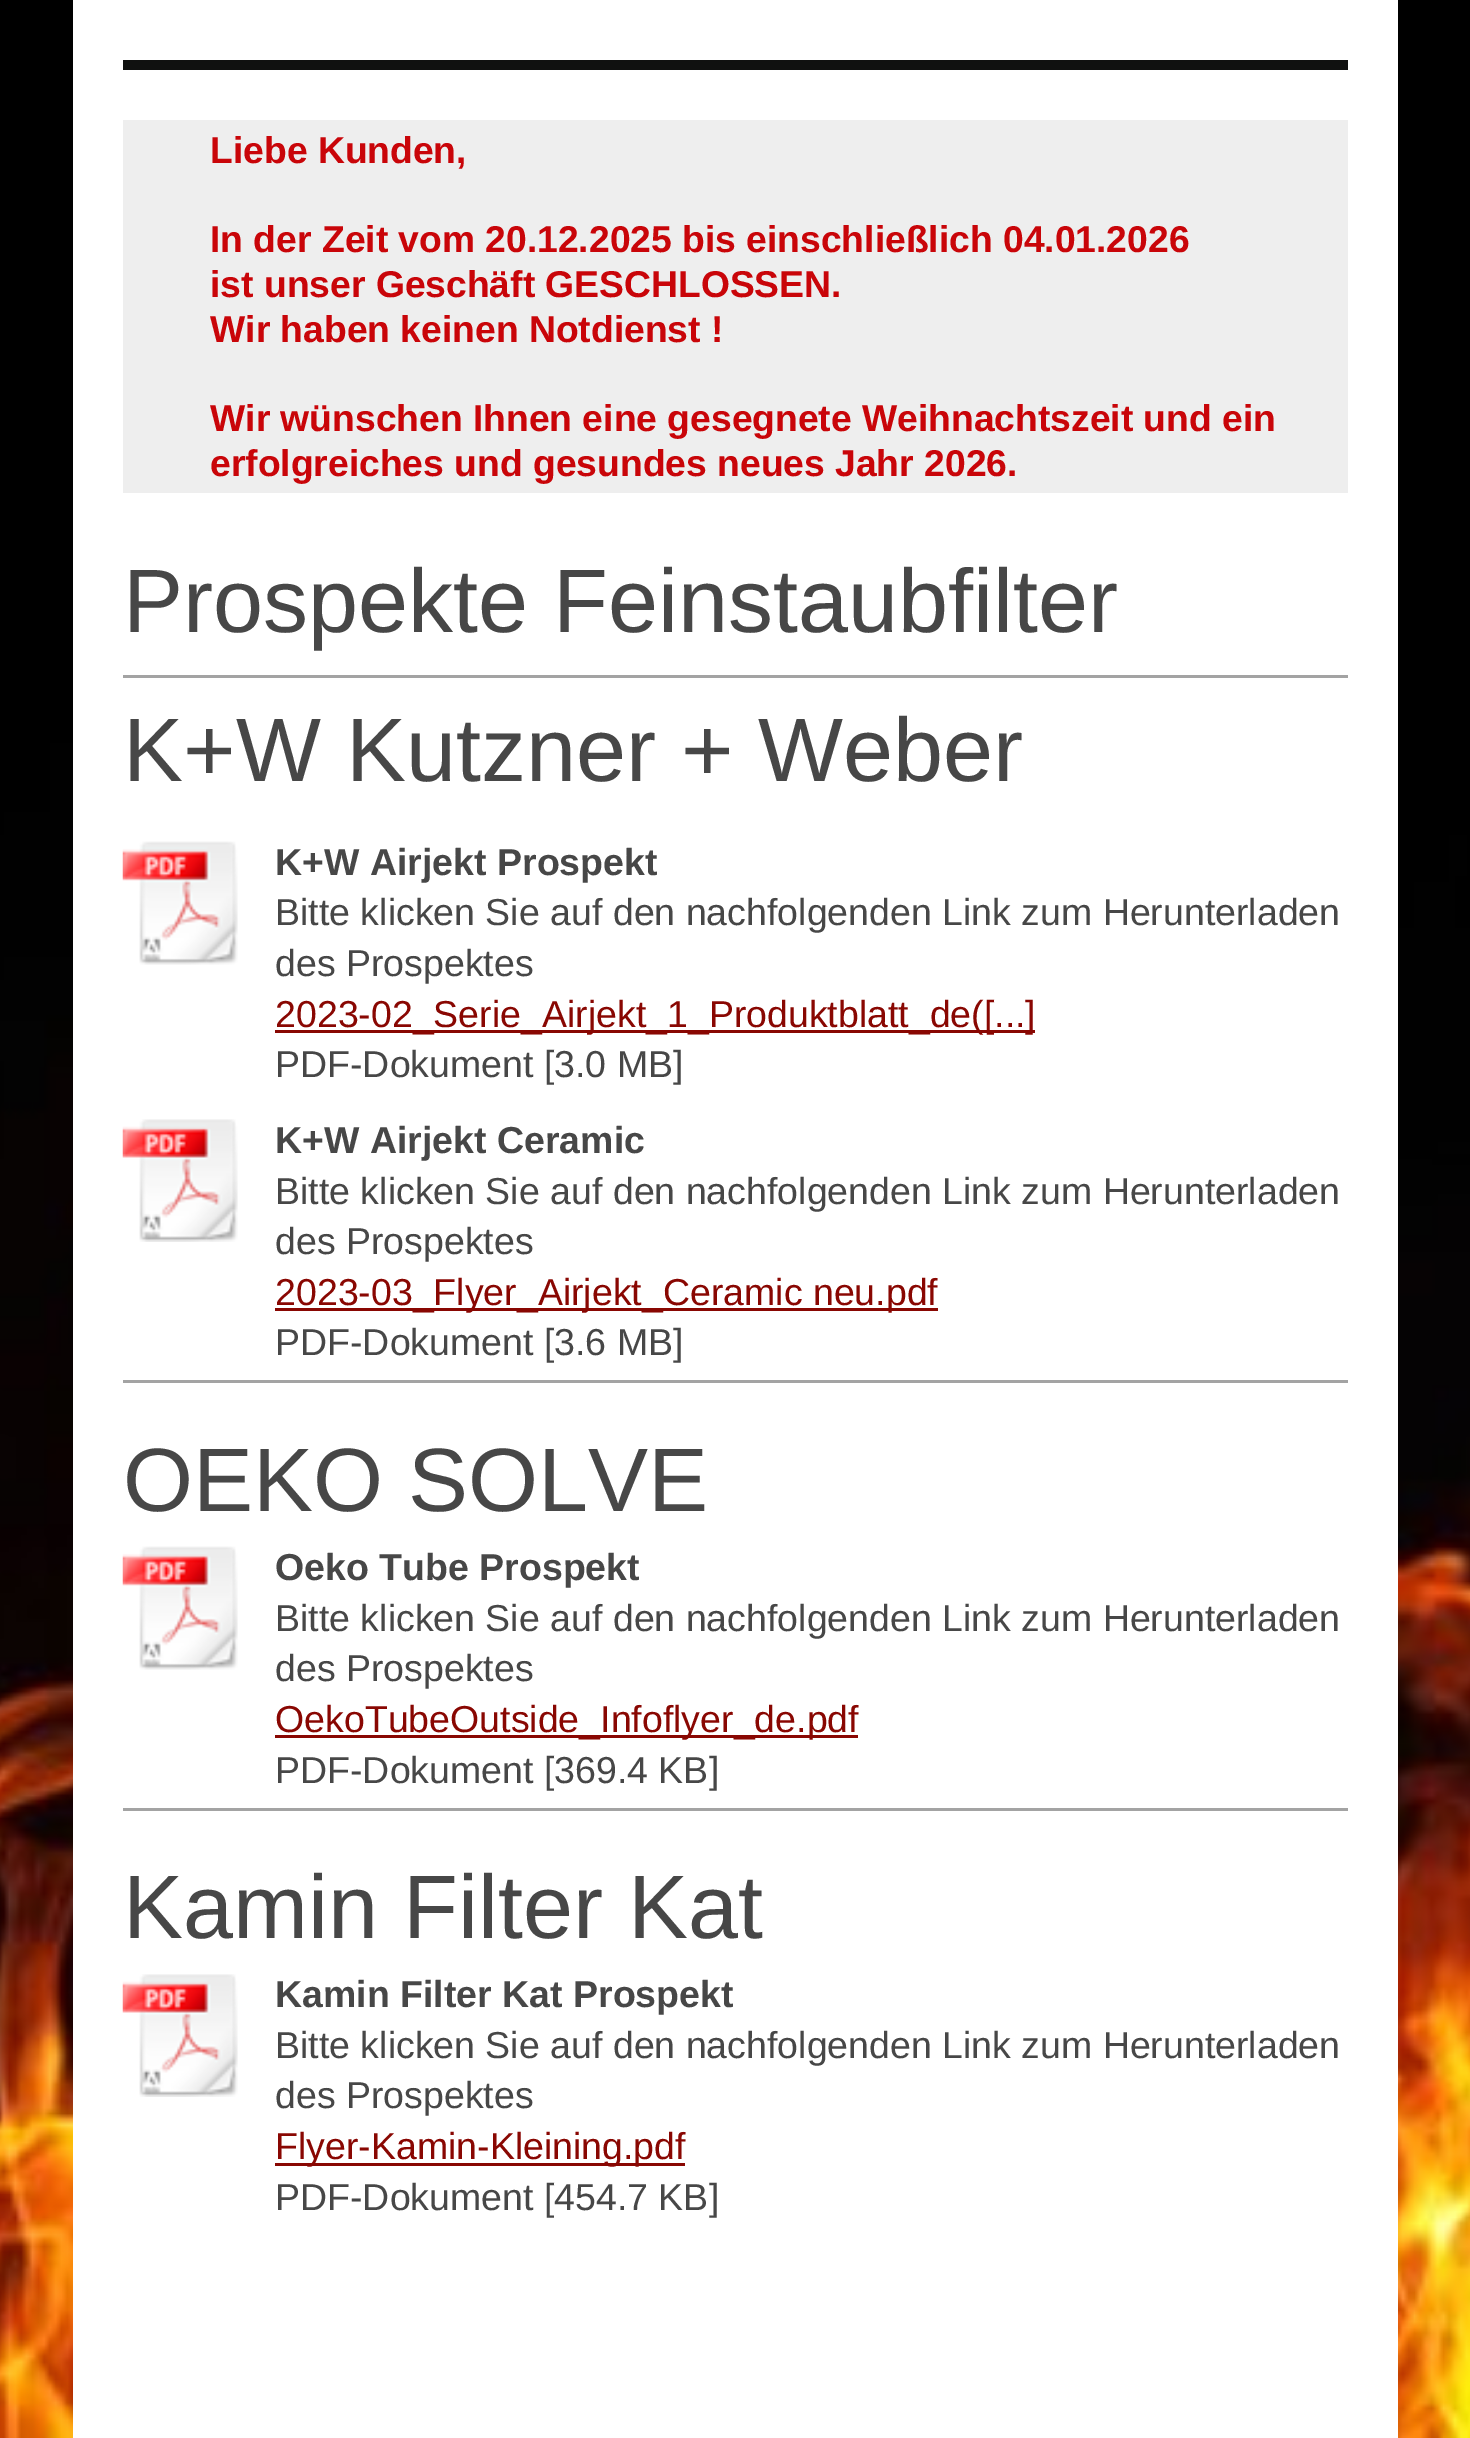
%!PS-Adobe-3.0
%%BoundingBox: 0 0 1470 2438
%%LanguageLevel: 3
%%Pages: 1
%%EndComments
%%BeginProlog
/setink { dup -16 bitshift 255 div exch dup -8 bitshift 255 and 255 div exch 255 and 255 div setrgbcolor } def
/usefont { [ exch dup neg 0 0 3 -1 roll 0 0 ] selectfont } def
/drawimage { 5 dict begin { /h /w /y /x /name } { exch def } forall
  gsave x y translate w h scale
  w h 8 [w 0 0 h 0 0] name (r) file false 3 colorimage grestore end } def
%%EndProlog
%%BeginSetup
<< /PageSize [1470 2438] >> setpagedevice
%%EndSetup
%%Page: 1 1
0 2438 translate 1 -1 scale
4 setmiterlimit
16#FFFFFF setink
0 0 1470 2438 rectfill
(img1.raw) 0 0 1470 2438 drawimage
[
    [73 0 1325 2438 16#FFFFFF]
    [123 60 1225 10 16#101110]
    [123 120 1225 373 16#EEEEEE]
] { aload pop setink rectfill } forall
/LiberationSans-Bold 37.25 usefont
16#C90509 setink
[
    [(Liebe Kunden,) 210 163]
    [(In der Zeit vom 20.12.2025 bis einschließlich 04.01.2026) 210 252]
    [(ist unser Geschäft GESCHLOSSEN.) 210 297]
    [(Wir haben keinen Notdienst !) 210 342]
    [(Wir wünschen Ihnen eine gesegnete Weihnachtszeit und ein) 210 431]
    [(erfolgreiches und gesundes neues Jahr 2026.) 210 476]
] { aload pop moveto show } forall
/LiberationSans-Regular 90 usefont
16#474747 setink
123 632 moveto (Prospekte Feinstaubfilter) show
16#A3A3A3 setink
123 675 1225 3 rectfill
16#474747 setink
123 781 moveto (K+W Kutzner + Weber) show
(img2.raw) 122 841 116 124 drawimage
/LiberationSans-Bold 37.5 usefont
275 875 moveto (K+W Airjekt Prospekt) show
/LiberationSans-Regular 37.5 usefont
275 925 moveto (Bitte klicken Sie auf den nachfolgenden Link zum Herunterladen) show
275 976 moveto (des Prospektes) show
16#890702 setink
275 1030 760 3 rectfill
275 1027 moveto (2023-02_Serie_Airjekt_1_Produktblatt_de\([...]) show
16#474747 setink
275 1077 moveto (PDF-Dokument [3.0 MB]) show
(img3.raw) 122 1119 116 123 drawimage
/LiberationSans-Bold 37.5 usefont
275 1153 moveto (K+W Airjekt Ceramic) show
/LiberationSans-Regular 37.5 usefont
275 1204 moveto (Bitte klicken Sie auf den nachfolgenden Link zum Herunterladen) show
275 1254 moveto (des Prospektes) show
16#890702 setink
275 1308 663 3 rectfill
275 1305 moveto (2023-03_Flyer_Airjekt_Ceramic neu.pdf) show
16#474747 setink
275 1355 moveto (PDF-Dokument [3.6 MB]) show
16#A3A3A3 setink
123 1380 1225 3 rectfill
/LiberationSans-Regular 90 usefont
16#474747 setink
123 1511 moveto (OEKO SOLVE) show
(img2.raw) 122 1546 116 124 drawimage
/LiberationSans-Bold 37.5 usefont
275 1580 moveto (Oeko Tube Prospekt) show
/LiberationSans-Regular 37.5 usefont
275 1631 moveto (Bitte klicken Sie auf den nachfolgenden Link zum Herunterladen) show
275 1681 moveto (des Prospektes) show
16#890702 setink
275 1735 583 3 rectfill
275 1732 moveto (OekoTubeOutside_Infoflyer_de.pdf) show
16#474747 setink
275 1783 moveto (PDF-Dokument [369.4 KB]) show
16#A3A3A3 setink
123 1808 1225 3 rectfill
/LiberationSans-Regular 90 usefont
16#474747 setink
123 1938 moveto (Kamin Filter Kat) show
(img3.raw) 122 1974 116 123 drawimage
/LiberationSans-Bold 37.5 usefont
275 2007 moveto (Kamin Filter Kat Prospekt) show
/LiberationSans-Regular 37.5 usefont
275 2058 moveto (Bitte klicken Sie auf den nachfolgenden Link zum Herunterladen) show
275 2108 moveto (des Prospektes) show
16#890702 setink
275 2163 410 3 rectfill
275 2159 moveto (Flyer-Kamin-Kleining.pdf) show
16#474747 setink
275 2210 moveto (PDF-Dokument [454.7 KB]) show
showpage
%%EOF
